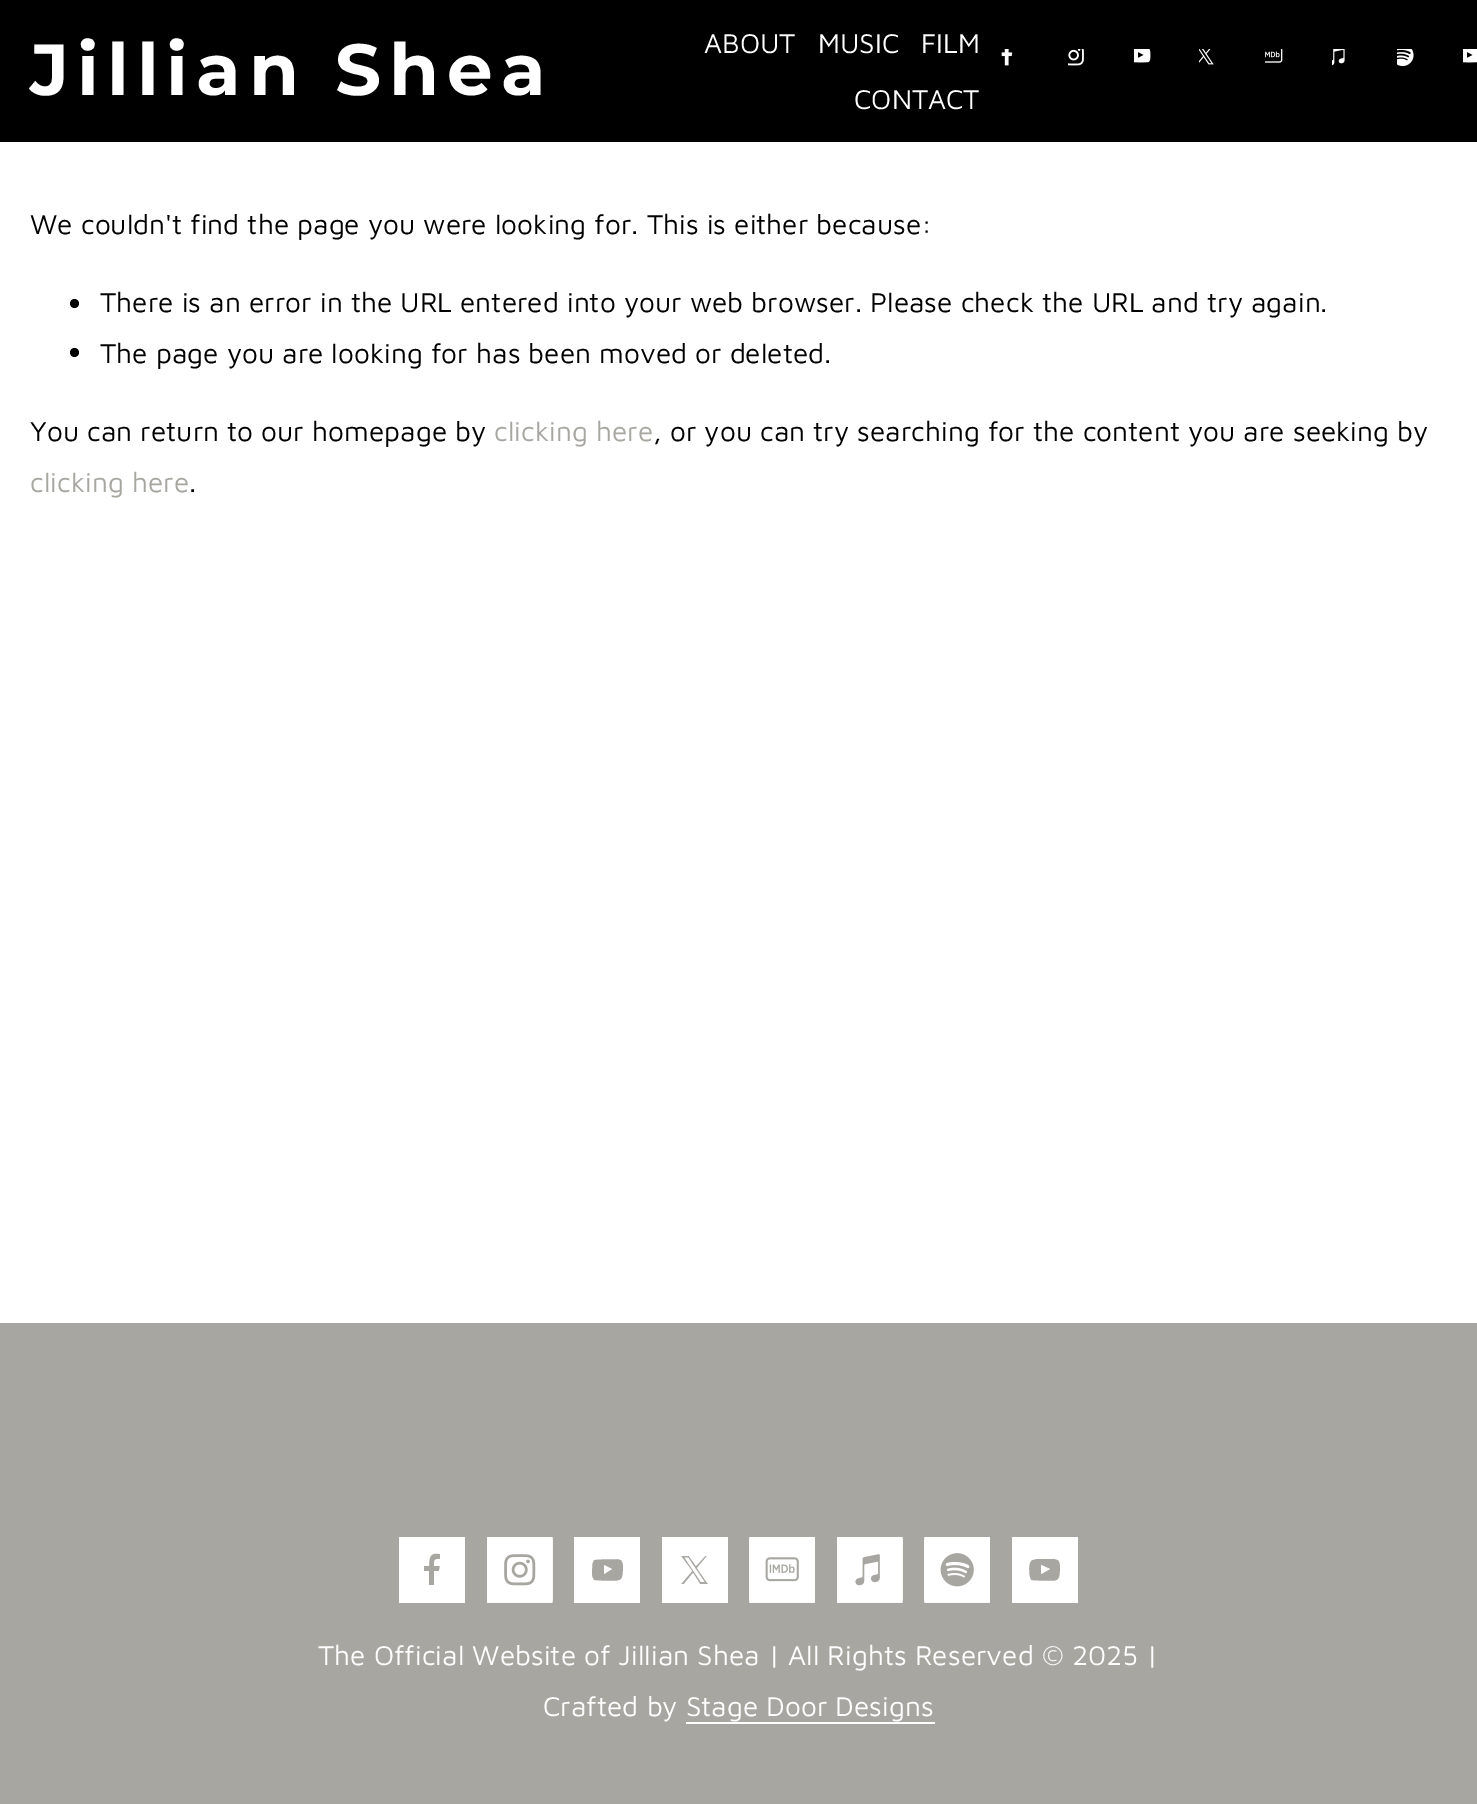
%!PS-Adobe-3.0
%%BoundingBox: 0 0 1477 1804
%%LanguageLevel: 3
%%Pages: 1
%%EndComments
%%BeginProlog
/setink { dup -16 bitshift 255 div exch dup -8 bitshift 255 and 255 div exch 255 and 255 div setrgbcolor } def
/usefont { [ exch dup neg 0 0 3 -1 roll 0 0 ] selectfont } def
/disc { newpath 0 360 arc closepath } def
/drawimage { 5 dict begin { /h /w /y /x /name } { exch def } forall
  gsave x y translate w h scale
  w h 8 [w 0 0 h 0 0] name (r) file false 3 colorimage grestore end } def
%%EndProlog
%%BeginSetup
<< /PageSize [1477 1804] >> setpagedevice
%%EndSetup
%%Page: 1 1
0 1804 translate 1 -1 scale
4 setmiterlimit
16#FFFFFF setink
0 0 1477 1804 rectfill
16#000000 setink
0 0 1477 142 rectfill
/Montserrat-Bold 72.25 usefont
16#FFFFFF setink
30 95 moveto 8 0 (Jillian Shea) ashow
/MavenPro-Regular 28 usefont
[
    [(ABOUT) 704 53]
    [(MUSIC) 818 53]
    [(FILM) 921 53]
    [(CONTACT) 854 109]
] { aload pop moveto show } forall
(img1.raw) 1001 49 12 17 drawimage
(img2.raw) 1068 49 16 17 drawimage
(img3.raw) 1134 49 17 14 drawimage
(img4.raw) 1199 49 15 16 drawimage
(img5.raw) 1265 49 18 14 drawimage
(img6.raw) 1332 49 13 17 drawimage
(img7.raw) 1397 49 17 18 drawimage
(img8.raw) 1463 49 14 14 drawimage
16#000000 setink
30 234 moveto (We couldn't find the page you were looking for. This is either because:) show
74.5 303.5 4.5 disc fill
100 312 moveto (There is an error in the URL entered into your web browser. Please check the URL and try again.) show
74.5 352.5 4.5 disc fill
100 363 moveto (The page you are looking for has been moved or deleted.) show
30 441 moveto (You can return to our homepage by) show
16#A8A6A1 setink
494 441 moveto (clicking here) show
16#000000 setink
653 441 moveto (, or you can try searching for the content you are seeking by) show
16#A8A6A1 setink
30 492 moveto (clicking here) show
16#000000 setink
189 492 moveto (.) show
16#A8A6A1 setink
0 1323 1477 481 rectfill
16#FFFFFF setink
399 1540 moveto 399 1589 lineto 399 1603 lineto 465 1603 lineto 465 1537 lineto 399 1537 lineto closepath 440 1559 moveto 440 1554 lineto 430 1552 429 1557 429 1566 curveto 424 1566 lineto 424 1571 lineto 429 1571 lineto 429 1585 lineto 434 1585 lineto 434 1571 lineto 439 1571 lineto 440 1566 lineto 434 1566 lineto 434 1560 434 1559 440 1559 curveto closepath eofill
(img9.raw) 487 1537 66 66 drawimage
574 1540 moveto 574 1589 lineto 574 1603 lineto 640 1603 lineto 640 1537 lineto 574 1537 lineto closepath 623 1571 moveto 623 1568 624 1563 621 1560 curveto 618 1559 lineto 614 1559 596 1559 594 1560 curveto 592 1562 592 1566 592 1569 curveto 592 1572 591 1577 594 1580 curveto 596 1581 613 1581 616 1581 curveto 620 1580 lineto 623 1578 623 1574 623 1571 curveto closepath 604 1574 moveto 604 1565 lineto 612 1569 lineto closepath eofill
701 1582 moveto 704.5 1582 lineto 688 1557.5 lineto 684.5 1557.5 lineto closepath fill
662 1537 moveto 662 1603 lineto 728 1603 lineto 728 1589 lineto 728 1537 lineto closepath 707 1556 moveto 705 1556 lineto 696 1566 lineto 689 1556 lineto 681 1556 lineto 692 1571 lineto 681 1584 lineto 684 1584 lineto 693 1573 lineto 700 1584 lineto 708 1584 lineto 697 1568 lineto closepath eofill
(img10.raw) 749 1537 66 66 drawimage
(img11.raw) 837 1537 66 66 drawimage
(img12.raw) 924 1537 66 66 drawimage
1012 1537 moveto 1012 1603 lineto 1078 1603 lineto 1078 1589 lineto 1078 1537 lineto closepath 1060 1571 moveto 1060 1568 1061 1563 1058 1560 curveto 1055 1559 lineto 1036 1559 lineto 1032 1560 lineto 1029 1562 1029 1566 1029 1569 curveto 1029 1572 1029 1577 1031 1580 curveto 1033 1581 1051 1581 1054 1581 curveto 1057 1580 lineto 1060 1578 1060 1574 1060 1571 curveto closepath 1041 1574 moveto 1041 1565 lineto 1050 1569 lineto closepath eofill
318 1665 moveto (The Official Website of Jillian Shea | All Rights Reserved © 2025 |) show
543 1716 moveto (Crafted by Stage Door Designs) show
686 1722 249 2 rectfill
showpage
%%EOF
